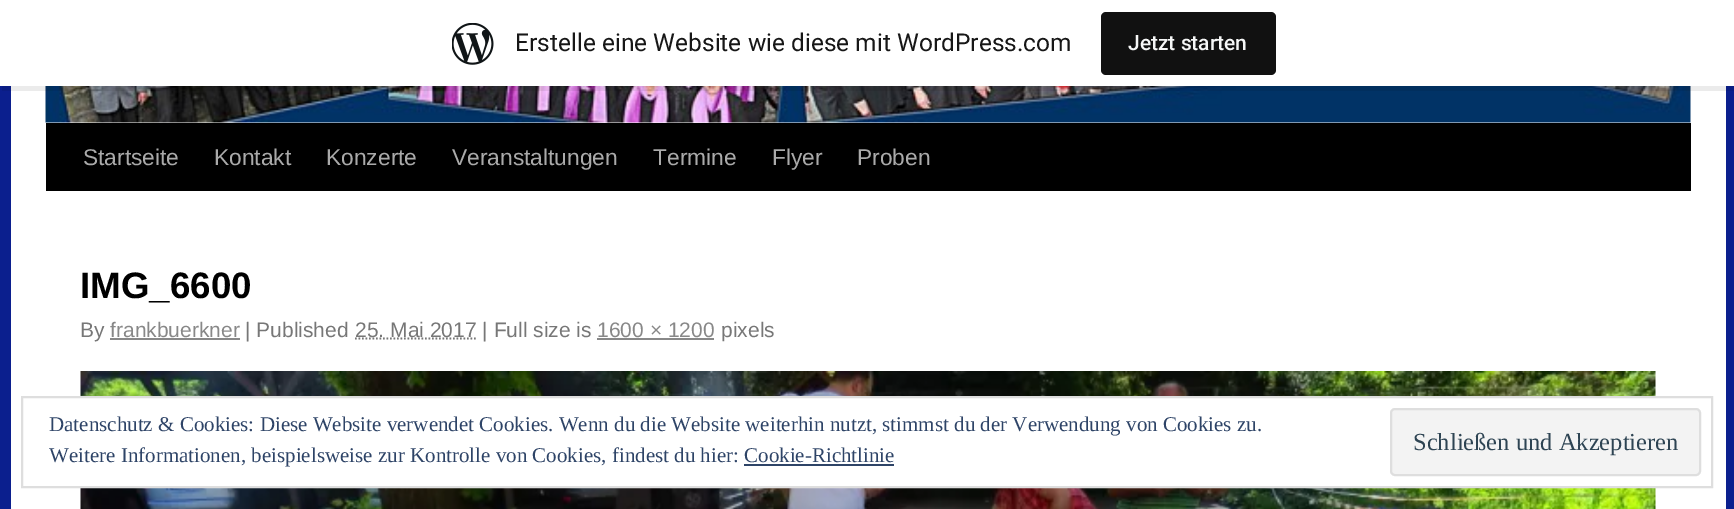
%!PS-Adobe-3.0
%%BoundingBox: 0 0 1734 509
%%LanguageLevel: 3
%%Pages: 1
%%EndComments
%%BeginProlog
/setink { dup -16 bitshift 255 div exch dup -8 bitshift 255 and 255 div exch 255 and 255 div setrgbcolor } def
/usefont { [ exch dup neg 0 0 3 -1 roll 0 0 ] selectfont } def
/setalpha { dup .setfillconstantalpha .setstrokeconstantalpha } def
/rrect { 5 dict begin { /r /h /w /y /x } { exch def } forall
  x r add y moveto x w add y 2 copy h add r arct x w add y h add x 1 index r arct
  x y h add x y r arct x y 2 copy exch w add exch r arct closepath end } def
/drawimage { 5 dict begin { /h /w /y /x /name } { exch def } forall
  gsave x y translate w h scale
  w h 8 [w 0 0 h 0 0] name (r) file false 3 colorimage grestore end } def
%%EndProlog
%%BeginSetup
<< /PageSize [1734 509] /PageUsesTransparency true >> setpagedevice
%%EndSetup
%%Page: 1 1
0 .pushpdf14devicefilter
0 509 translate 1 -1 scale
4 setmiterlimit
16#0B1F8E setink
0 0 1734 509 rectfill
16#FFFFFF setink
11 86 1715 423 rectfill
(img2.raw) 45 86 1646 37 drawimage
0.08 setalpha
16#000000 setink
2 86 moveto 2 91 lineto 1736 91 lineto 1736 5 lineto 1734 5 lineto 1734 86 lineto closepath fill
1 setalpha
16#FFFFFF setink
0 0 1734 86 rectfill
(img1.raw) 452 23 42 42 drawimage
/Roboto-Regular 24.5 usefont
16#171717 setink
515 51 moveto (Erstelle eine Website wie diese mit WordPress.com) show
16#111111 setink
1101 12 175 63 5 rrect fill
/Roboto-Medium 21 usefont
16#F6F7F7 setink
1128 50 moveto (Jetzt starten) show
16#000000 setink
46 123 1645 68 rectfill
/LiberationSans-Regular 22.75 usefont
16#AAAAAA setink
[
    [(Startseite) 83 165]
    [(Kontakt) 214 165]
    [(Konzerte) 326 165]
    [(Veranstaltungen) 452 165]
    [(Termine) 653 165]
    [(Flyer) 772 165]
    [(Proben) 857 165]
] { aload pop moveto show } forall
/LiberationSans-Bold 36.75 usefont
16#000000 setink
80 298 moveto (IMG_6600) show
/LiberationSans-Regular 21 usefont
16#777777 setink
80 337 moveto (By) show
16#888888 setink
110 337 moveto (frankbuerkner) show
110 338 130 2 rectfill
16#777777 setink
245 337 moveto (| Published) show
1.8 setlinewidth
[1.75 1.75] 0 setdash
355 338.5 moveto 476.5 338.5 lineto stroke
355 337 moveto (25. Mai 2017 | Full size is) show
16#888888 setink
597 337 moveto (1600 × 1200) show
597 338 117 2 rectfill
16#777777 setink
721 337 moveto (pixels) show
(img3.raw) 80 371 1576 138 drawimage
16#FFFFFF setink
80 398 1576 88 rectfill
16#DEDEDE setink
2 setlinewidth
[] 0 setdash
22 397 1690 90 rectstroke
/LiberationSerif-Regular 21 usefont
16#2E4467 setink
49 431 moveto (Datenschutz & Cookies: Diese Website verwendet Cookies. Wenn du die Website weiterhin nutzt, stimmst du der Verwendung von Cookies zu.) show
49 462 moveto (Weitere Informationen, beispielsweise zur Kontrolle von Cookies, findest du hier: Cookie-Richtlinie) show
16#F3F3F3 setink
1391 409 309 66 4 rrect gsave fill grestore
16#DEDEDE setink
stroke
/LiberationSerif-Regular 24.5 usefont
16#2E4453 setink
1413 450 moveto (Schließen und Akzeptieren) show
16#2E4467 setink
744 464 150 2 rectfill
.poppdf14devicefilter showpage
%%EOF
